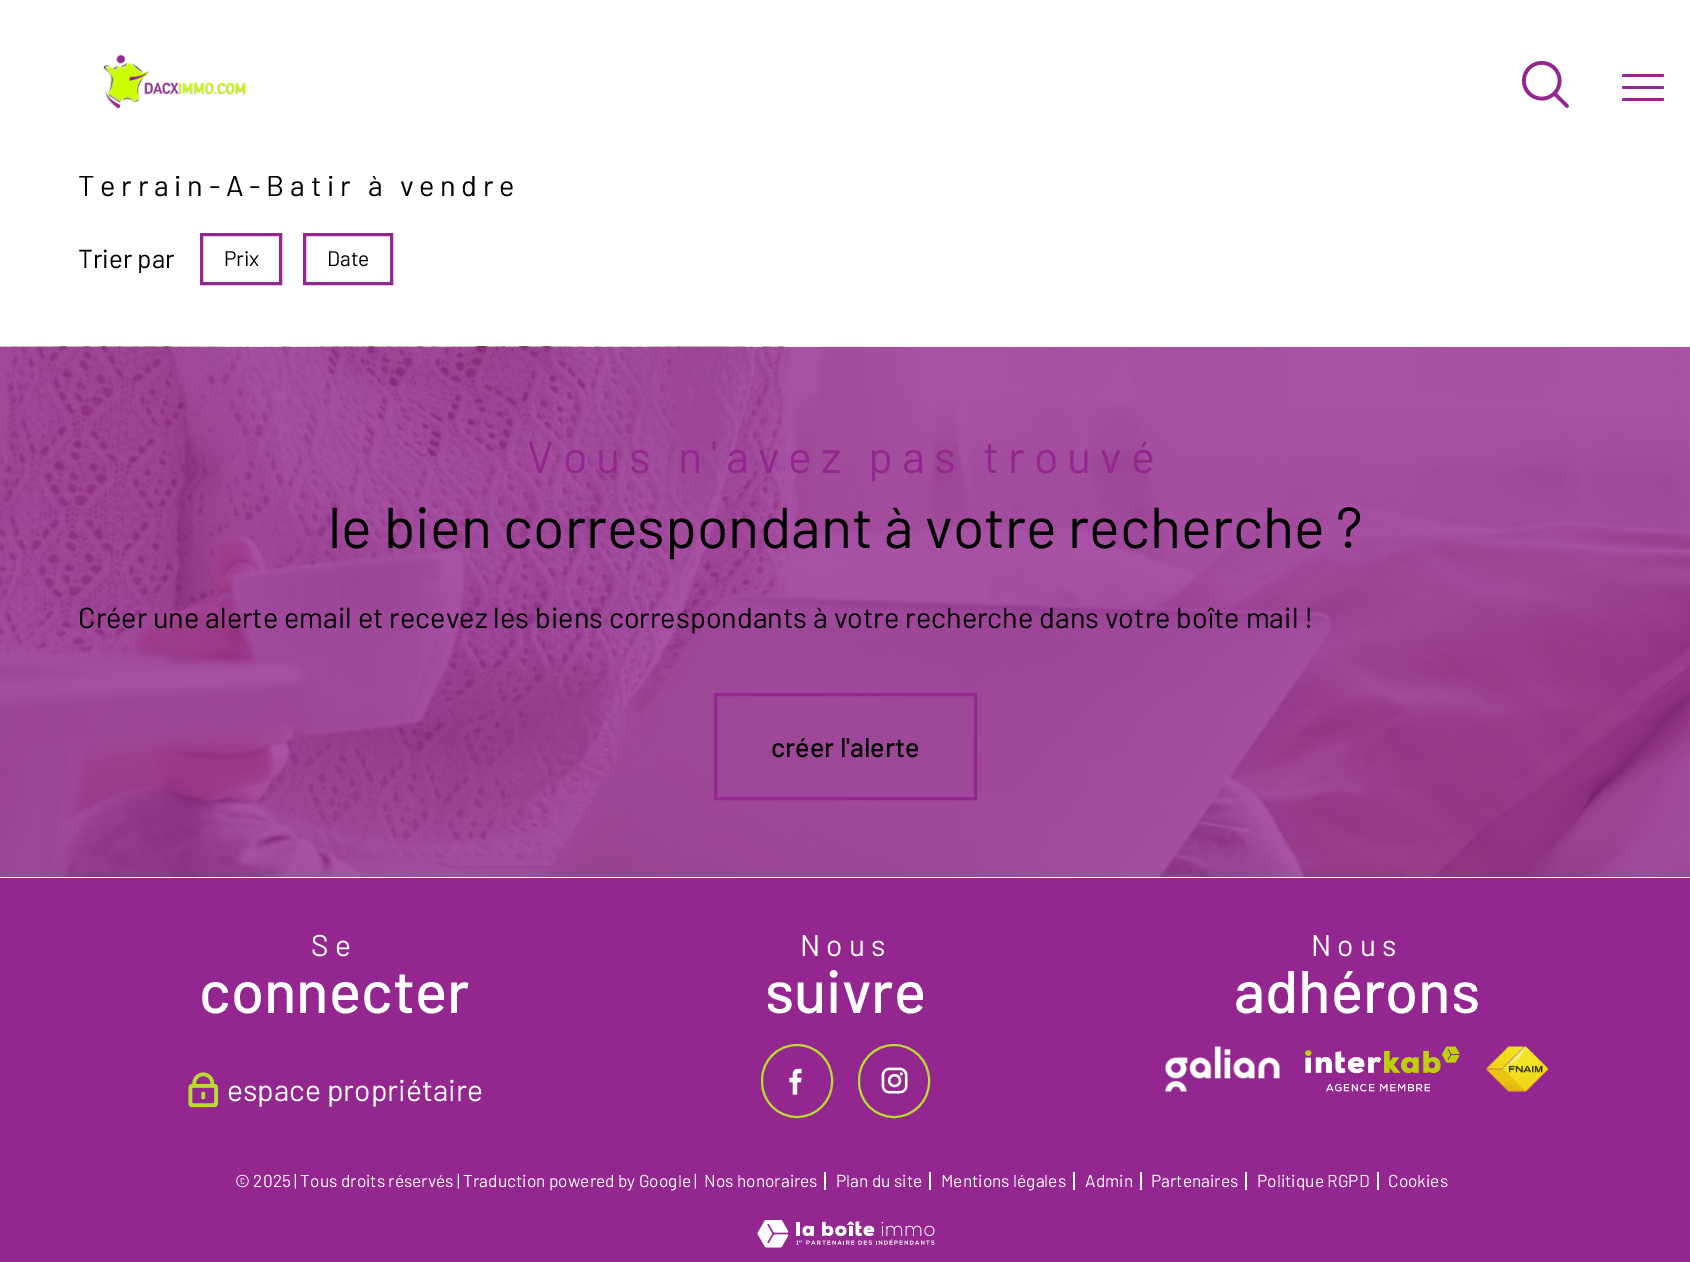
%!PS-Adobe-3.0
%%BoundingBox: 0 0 1690 1262
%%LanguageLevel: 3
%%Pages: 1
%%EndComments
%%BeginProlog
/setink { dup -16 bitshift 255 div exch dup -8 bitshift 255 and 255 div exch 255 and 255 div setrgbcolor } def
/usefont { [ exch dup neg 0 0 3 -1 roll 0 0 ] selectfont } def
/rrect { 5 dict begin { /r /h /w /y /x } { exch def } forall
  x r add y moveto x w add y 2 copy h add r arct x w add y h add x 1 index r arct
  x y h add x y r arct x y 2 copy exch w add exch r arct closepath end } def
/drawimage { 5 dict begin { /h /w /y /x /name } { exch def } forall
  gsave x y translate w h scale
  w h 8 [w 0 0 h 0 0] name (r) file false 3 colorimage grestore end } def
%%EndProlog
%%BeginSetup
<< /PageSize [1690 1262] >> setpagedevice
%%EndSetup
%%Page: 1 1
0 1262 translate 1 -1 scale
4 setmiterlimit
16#FFFFFF setink
0 0 1690 1262 rectfill
/Barlow-Regular 28.85 usefont
16#000000 setink
78 196 moveto 5.75 0 (Terrain-A-Batir à vendre) ashow
16#FFFFFF setink
79 175 396 1 rectfill
(img1.raw) 103 54 143 55 drawimage
(img2.raw) 1521 60 48 48 drawimage
16#93278F setink
1622 86 42 3 1.5 rrect fill
1622 74 42 3 1.5 rrect fill
1622 98 42 3 1.5 rrect fill
/Barlow-Regular 26 usefont
16#000000 setink
78 268 moveto (Trier par) show
16#93278F setink
3 setlinewidth
201.5 234.5 79 49 rectstroke
/Barlow-Regular 21 usefont
16#000000 setink
224 266 moveto (Prix) show
16#93278F setink
304.5 234.5 87 49 rectstroke
16#000000 setink
327 266 moveto (Date) show
(img3.raw) 0 346 1690 531 drawimage
/Barlow-Regular 45 usefont
16#93278F setink
527 473 moveto 9 0 (Vous n'avez pas trouvé) ashow
/Barlow-Regular 57.7 usefont
16#000000 setink
328 548 moveto (le bien correspondant à votre recherche ?) show
/Barlow-Regular 28.85 usefont
78 628 moveto (Créer une alerte email et recevez les biens correspondants à votre recherche dans votre boîte mail !) show
16#93278F setink
715.5 694.5 260 104 rectstroke
/Barlow-Medium 27 usefont
16#000000 setink
771 757 moveto (créer l'alerte) show
16#93278F setink
0 878 1690 384 rectfill
/Barlow-Regular 30 usefont
16#FFFFFF setink
311 956 moveto 6 0 (Se) ashow
/Barlow-Medium 60 usefont
199 1013 moveto (connecter) show
(img4.raw) 188 1072 31 36 drawimage
/Barlow-Regular 30 usefont
227 1101 moveto (espace propriétaire) show
800 956 moveto 6 0 (Nous) ashow
/Barlow-Medium 60 usefont
765 1013 moveto (suivre) show
16#B9DB32 setink
2 setlinewidth
762 1045 70 72 35 rrect stroke
(img5.raw) 789 1068 13 27 drawimage
859 1045 70 72 35 rrect stroke
(img6.raw) 881 1067 27 27 drawimage
/Barlow-Regular 30 usefont
16#FFFFFF setink
1311 956 moveto 6 0 (Nous) ashow
/Barlow-Medium 60 usefont
1234 1013 moveto (adhérons) show
(img7.raw) 1165 1046 115 46 drawimage
(img8.raw) 1305 1046 155 46 drawimage
(img9.raw) 1486 1046 62 46 drawimage
/Barlow-Regular 17.3 usefont
235 1187 moveto (© 2025 | Tous droits réservés | Traduction powered by Google |) show
824 1172 2 18 rectfill
704 1187 moveto (Nos honoraires) show
929 1172 2 18 rectfill
836 1187 moveto (Plan du site) show
1073 1172 2 18 rectfill
941 1187 moveto (Mentions légales) show
1140 1172 2 18 rectfill
1085 1187 moveto (Admin) show
1245 1172 2 18 rectfill
1151 1187 moveto (Partenaires) show
1377 1172 2 18 rectfill
1257 1187 moveto (Politique RGPD) show
1388 1187 moveto (Cookies) show
(img10.raw) 757 1220 178 28 drawimage
showpage
%%EOF
